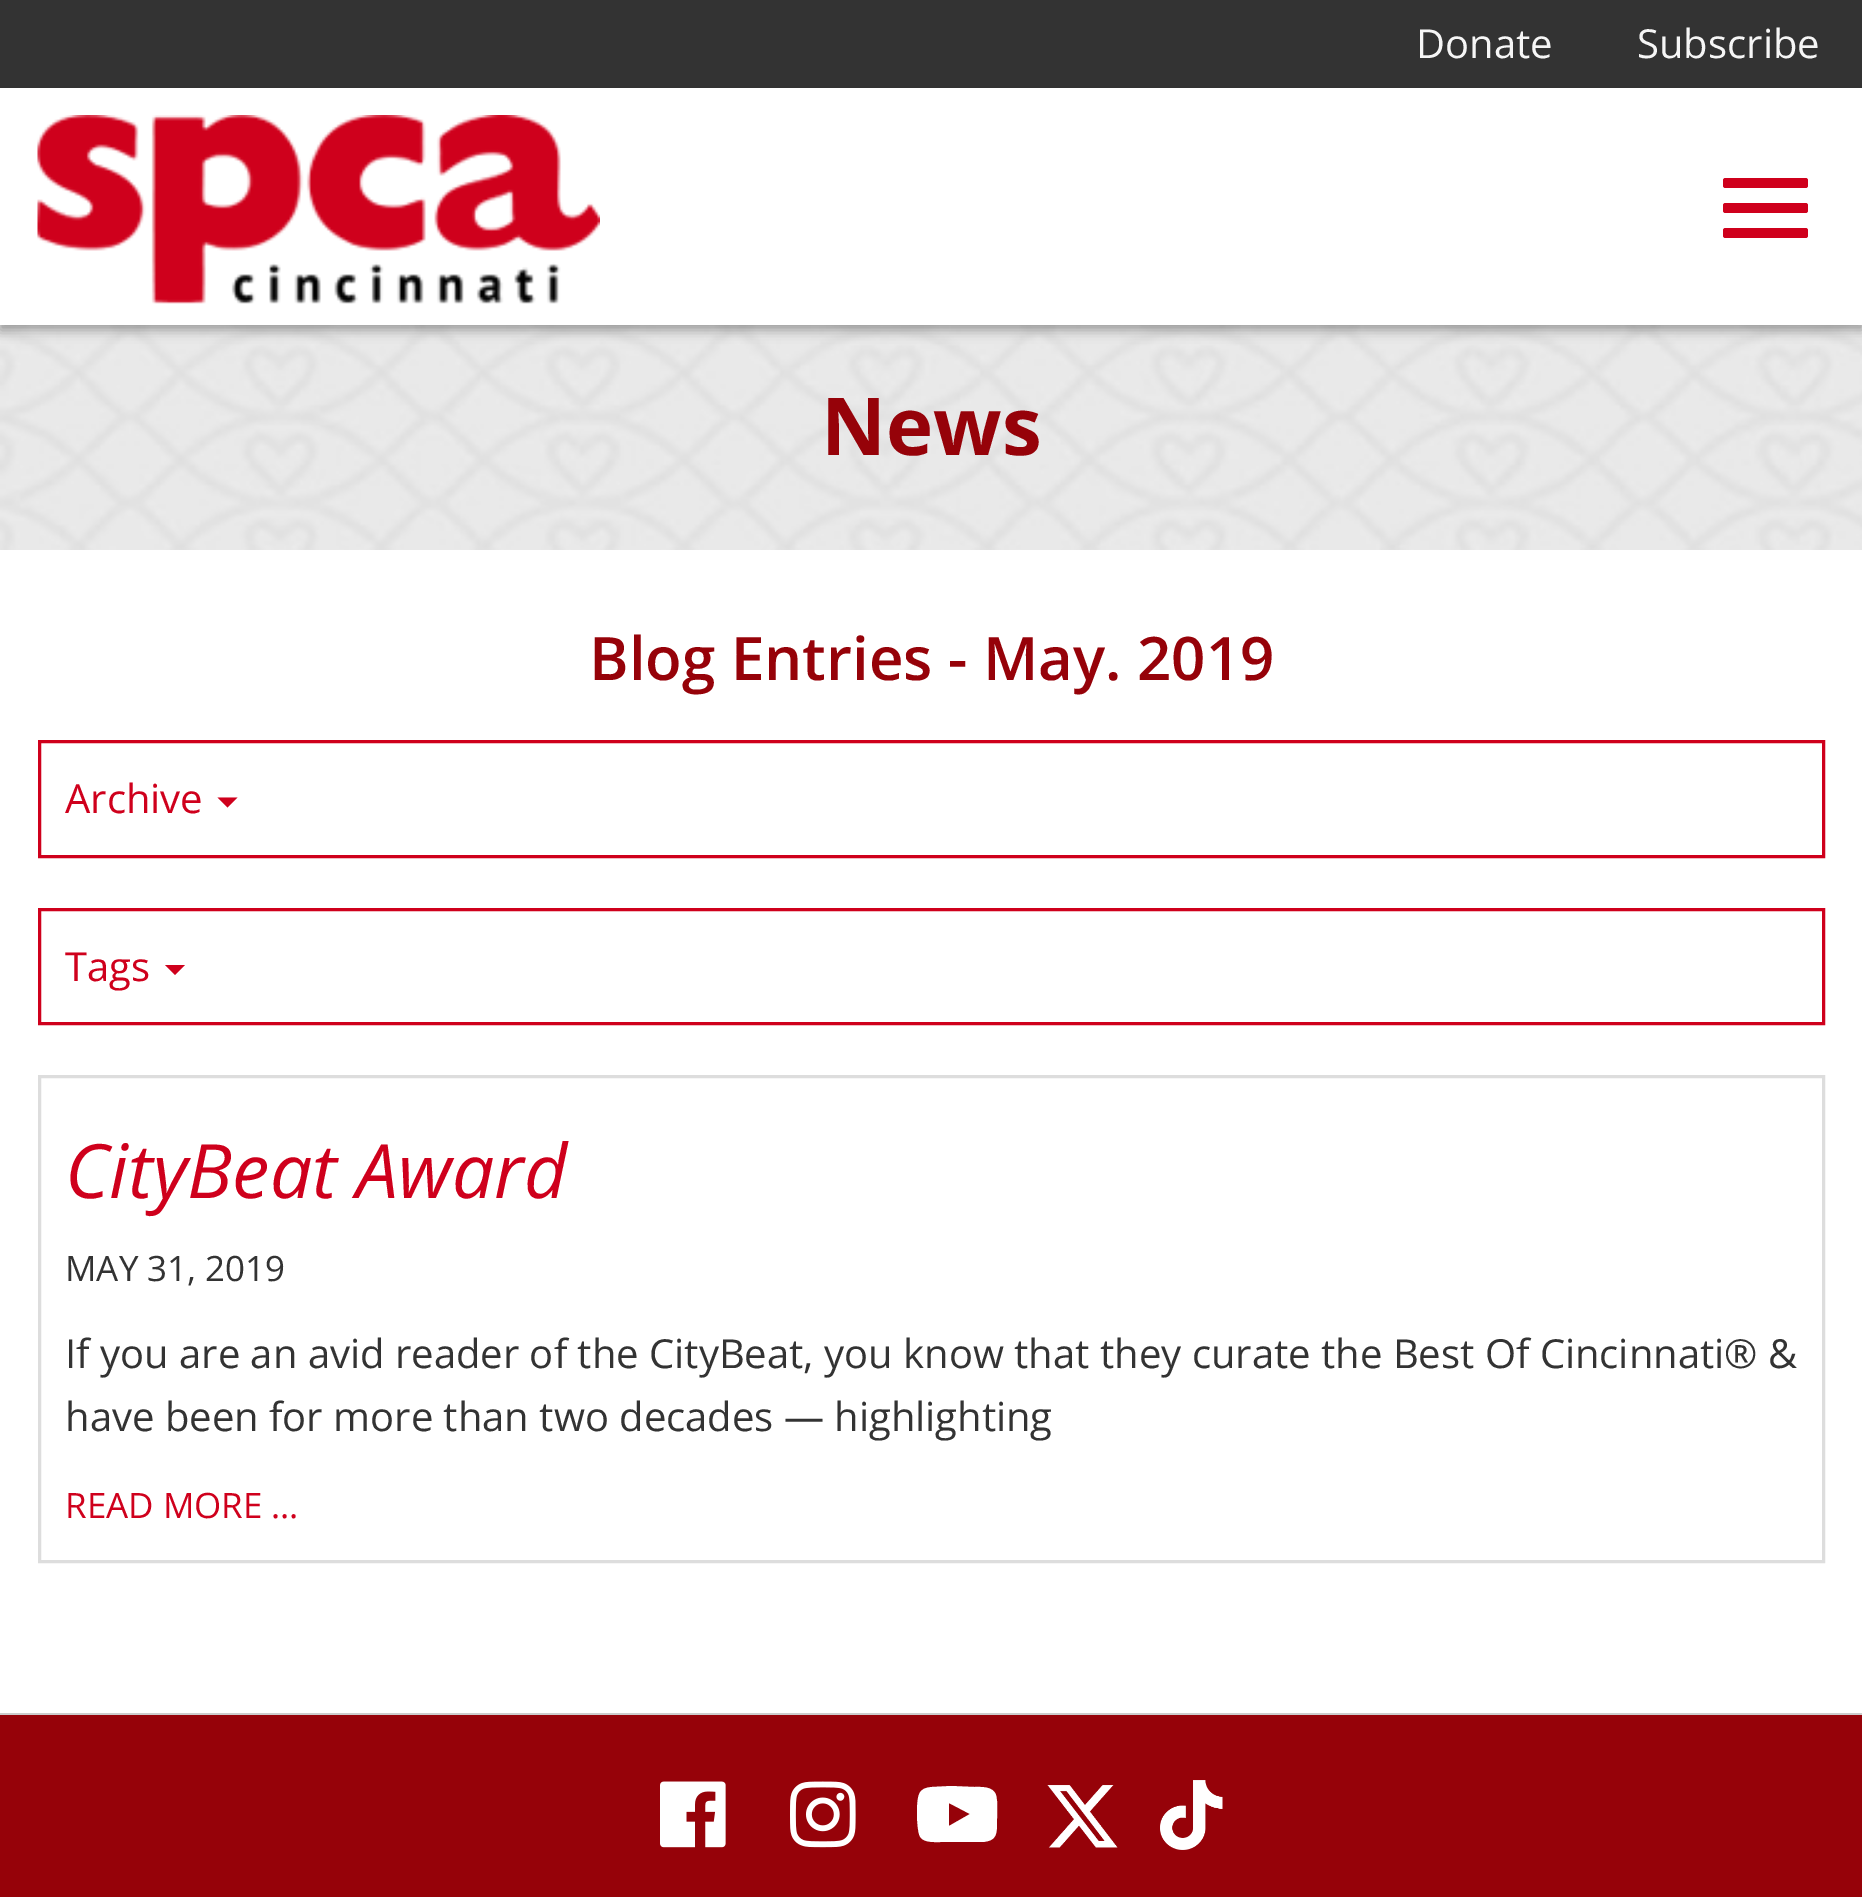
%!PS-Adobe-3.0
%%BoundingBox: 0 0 1862 1897
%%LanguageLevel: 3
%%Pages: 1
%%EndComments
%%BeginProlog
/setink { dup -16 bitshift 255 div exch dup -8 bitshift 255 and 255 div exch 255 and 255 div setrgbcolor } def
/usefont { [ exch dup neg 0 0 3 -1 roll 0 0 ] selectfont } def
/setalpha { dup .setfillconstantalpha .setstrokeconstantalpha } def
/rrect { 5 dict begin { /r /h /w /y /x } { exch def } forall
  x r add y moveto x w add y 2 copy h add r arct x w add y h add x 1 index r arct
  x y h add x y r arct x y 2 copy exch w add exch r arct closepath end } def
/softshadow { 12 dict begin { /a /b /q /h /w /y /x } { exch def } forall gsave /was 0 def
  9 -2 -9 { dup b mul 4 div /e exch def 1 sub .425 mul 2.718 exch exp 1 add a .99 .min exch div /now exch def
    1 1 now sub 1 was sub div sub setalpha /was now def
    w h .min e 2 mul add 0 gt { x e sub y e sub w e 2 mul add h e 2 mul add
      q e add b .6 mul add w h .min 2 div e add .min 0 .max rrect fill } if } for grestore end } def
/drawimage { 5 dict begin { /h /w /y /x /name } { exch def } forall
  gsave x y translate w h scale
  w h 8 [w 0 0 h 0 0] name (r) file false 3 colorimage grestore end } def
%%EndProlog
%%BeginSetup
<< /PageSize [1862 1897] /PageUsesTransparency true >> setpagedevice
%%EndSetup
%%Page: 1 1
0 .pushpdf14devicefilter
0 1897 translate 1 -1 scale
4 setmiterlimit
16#FFFFFF setink
0 0 1862 1897 rectfill
16#333333 setink
0 0 1862 88 rectfill
/OpenSans-Regular 40 usefont
16#F6F6F6 setink
1416 58 moveto (Donate) show
1637 58 moveto (Subscribe) show
(img2.raw) 0 325 1862 225 drawimage
gsave
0 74 moveto 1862 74 lineto 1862 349 lineto 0 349 lineto closepath 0 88 moveto 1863 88 lineto 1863 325 lineto 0 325 lineto closepath eoclip newpath
16#212121 setink
0 93 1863 237 0 6 0.4 softshadow
grestore
(img1.raw) 37 115 563 189 drawimage
16#CF001C setink
1723 178 85 10 2.5 rrect fill
1723 203 85 10 2.5 rrect fill
1723 228 85 10 2.5 rrect fill
/OpenSans-Bold 80 usefont
16#960209 setink
821 455 moveto (News) show
/OpenSans-SemiBold 60 usefont
589 680 moveto (Blog Entries - May. 2019) show
16#CF001C setink
3 setlinewidth
39.5 741.5 1784 115 rectstroke
/OpenSans-Regular 40 usefont
65 813 moveto (Archive) show
217.5 797.5 moveto 237.5 797.5 lineto 227.5 807.5 lineto closepath fill
39.5 909.5 1784 114 rectstroke
65 981 moveto (Tags) show
165 965 moveto 185 965 lineto 175 975 lineto closepath fill
16#DDDDDD setink
39.5 1076.5 1784 485 rectstroke
/OpenSans-Italic 75 usefont
16#CF001C setink
65 1198 moveto (CityBeat Award) show
/OpenSans-Regular 35 usefont
16#333333 setink
65 1281 moveto (MAY 31, 2019) show
/OpenSans-Regular 40 usefont
65 1368 moveto (If you are an avid reader of the CityBeat, you know that they curate the Best Of Cincinnati® &) show
65 1431 moveto (have been for more than two decades — highlighting) show
/OpenSans-Regular 35 usefont
16#CF001C setink
65 1518 moveto (READ MORE …) show
16#CCCCCC setink
0 1713 1862 2 rectfill
16#960209 setink
0 1715 1862 182 rectfill
(img3.raw) 660 1781 66 67 drawimage
(img4.raw) 790 1781 66 67 drawimage
16#FFFFFF setink
996 1795 moveto 993 1786 981 1787 974 1787 curveto 951 1786 lineto 932 1787 lineto 918 1788 918 1795 917 1808 curveto 917 1816 917 1826 919 1834 curveto 921 1843 933 1842 941 1842 curveto 964 1842 lineto 982 1842 lineto 997 1841 997 1834 997 1820 curveto 997 1812 998 1803 996 1795 curveto closepath 949 1826 moveto 949 1803 lineto 970 1814 lineto closepath fill
(img5.raw) 1047 1785 71 63 drawimage
(img6.raw) 1160 1780 63 70 drawimage
.poppdf14devicefilter showpage
%%EOF
